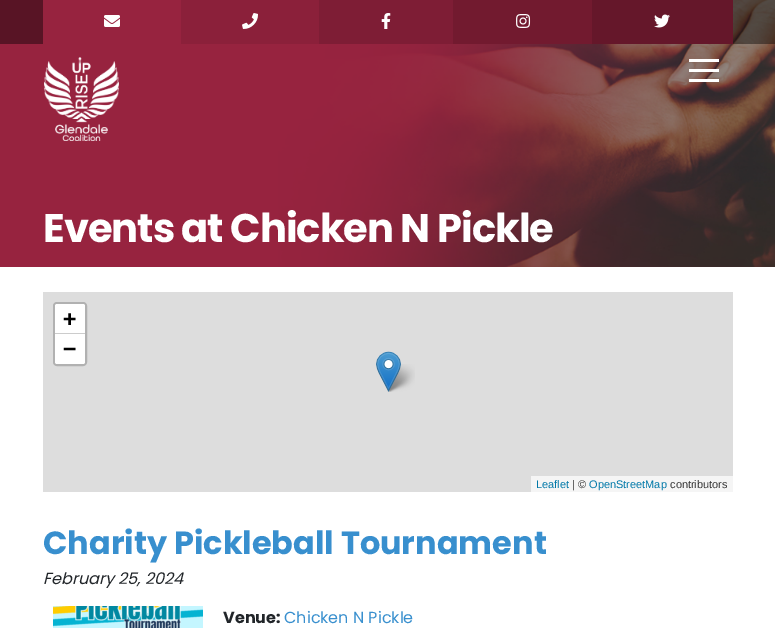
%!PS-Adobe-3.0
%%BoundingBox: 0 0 775 628
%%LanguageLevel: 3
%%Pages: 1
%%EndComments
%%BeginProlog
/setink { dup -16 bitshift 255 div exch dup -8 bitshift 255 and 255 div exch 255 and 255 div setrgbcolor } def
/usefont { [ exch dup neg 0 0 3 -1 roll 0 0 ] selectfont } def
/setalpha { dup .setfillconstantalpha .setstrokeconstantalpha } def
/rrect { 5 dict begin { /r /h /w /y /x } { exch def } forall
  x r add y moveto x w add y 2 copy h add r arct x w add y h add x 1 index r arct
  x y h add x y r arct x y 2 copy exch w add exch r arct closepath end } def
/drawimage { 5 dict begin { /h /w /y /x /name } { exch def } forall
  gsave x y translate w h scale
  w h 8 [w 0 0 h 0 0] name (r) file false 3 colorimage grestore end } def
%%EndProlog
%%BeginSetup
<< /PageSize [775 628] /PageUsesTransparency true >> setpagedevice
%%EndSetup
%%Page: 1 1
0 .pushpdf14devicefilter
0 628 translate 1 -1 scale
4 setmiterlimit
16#FFFFFF setink
0 0 775 628 rectfill
(img7.raw) 0 0 775 267 drawimage
0.42 setalpha
16#000000 setink
0 0 775 44 rectfill
1 setalpha
16#97233F setink
43 0 138 44 rectfill
(img1.raw) 104 15 16 12 drawimage
16#8B203A setink
181 0 138 44 rectfill
(img2.raw) 242 13 16 16 drawimage
16#7E1D35 setink
319 0 134 44 rectfill
(img3.raw) 381 13 10 16 drawimage
16#721A2F setink
453 0 139 44 rectfill
(img4.raw) 516 14 15 14 drawimage
16#65172A setink
592 0 141 44 rectfill
(img5.raw) 654 14 16 14 drawimage
(img6.raw) 44 57 75 84 drawimage
[
    [689 59 30 3 16#FFFFFF]
    [689 69 30 3 16#FFFFFF]
    [689 79 30 3 16#FFFFFF]
] { aload pop setink rectfill } forall
/Poppins-Bold 40 usefont
43 242 moveto -1 0 (Events at Chicken N Pickle) ashow
16#DDDDDD setink
43 292 690 200 rectfill
16#B1B1B1 setink
2 setlinewidth
54 303 32 62 3 rrect stroke
16#FFFFFF setink
57 304 moveto 83 304 lineto 84 304 85 305 85 306 curveto 85 334 lineto 55 334 lineto 55 306 lineto 55 305 56 304 57 304 curveto closepath fill
16#CCCCCC setink
55 333 30 1 rectfill
/DejaVuSansMono-Bold 22 usefont
16#000000 setink
63 326 moveto (+) show
16#FFFFFF setink
55 334 moveto 85 334 lineto 85 362 lineto 85 363 84 364 83 364 curveto 57 364 lineto 56 364 55 363 55 362 curveto closepath fill
16#000000 setink
63 356 moveto (−) show
16#F5F5F5 setink
531 476 202 16 rectfill
/LiberationSans-Regular 11 usefont
16#0078A8 setink
536 488 moveto (Leaflet) show
16#333333 setink
572 488 moveto (| ©) show
16#0078A8 setink
589 488 moveto (OpenStreetMap) show
16#333333 setink
670 488 moveto (contributors) show
(img9.raw) 386 364 29 28 drawimage
(img8.raw) 376 351 25 41 drawimage
/Poppins-Bold 32 usefont
16#388FCE setink
43 554 moveto (Charity Pickleball Tournament) show
/Poppins-Italic 16 usefont
16#212529 setink
43 584 moveto (February 25, 2024) show
(img10.raw) 53 606 150 22 drawimage
/Poppins-Bold 16 usefont
223 623 moveto (Venue:) show
/Poppins-Regular 16 usefont
16#388FCE setink
284 623 moveto (Chicken N Pickle) show
.poppdf14devicefilter showpage
%%EOF
